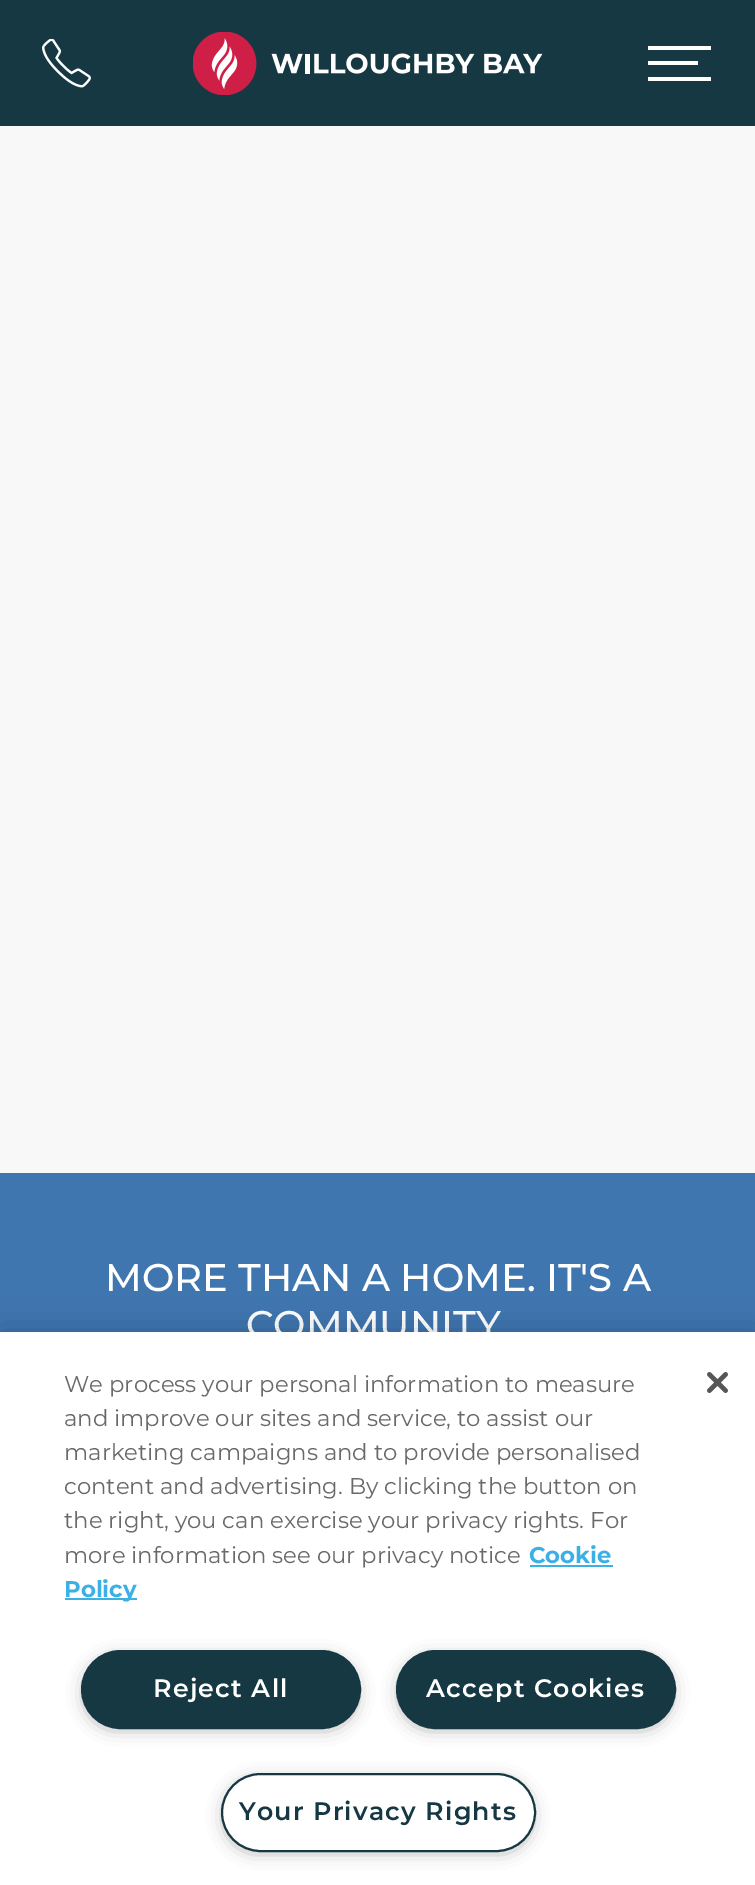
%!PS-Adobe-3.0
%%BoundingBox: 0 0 755 1885
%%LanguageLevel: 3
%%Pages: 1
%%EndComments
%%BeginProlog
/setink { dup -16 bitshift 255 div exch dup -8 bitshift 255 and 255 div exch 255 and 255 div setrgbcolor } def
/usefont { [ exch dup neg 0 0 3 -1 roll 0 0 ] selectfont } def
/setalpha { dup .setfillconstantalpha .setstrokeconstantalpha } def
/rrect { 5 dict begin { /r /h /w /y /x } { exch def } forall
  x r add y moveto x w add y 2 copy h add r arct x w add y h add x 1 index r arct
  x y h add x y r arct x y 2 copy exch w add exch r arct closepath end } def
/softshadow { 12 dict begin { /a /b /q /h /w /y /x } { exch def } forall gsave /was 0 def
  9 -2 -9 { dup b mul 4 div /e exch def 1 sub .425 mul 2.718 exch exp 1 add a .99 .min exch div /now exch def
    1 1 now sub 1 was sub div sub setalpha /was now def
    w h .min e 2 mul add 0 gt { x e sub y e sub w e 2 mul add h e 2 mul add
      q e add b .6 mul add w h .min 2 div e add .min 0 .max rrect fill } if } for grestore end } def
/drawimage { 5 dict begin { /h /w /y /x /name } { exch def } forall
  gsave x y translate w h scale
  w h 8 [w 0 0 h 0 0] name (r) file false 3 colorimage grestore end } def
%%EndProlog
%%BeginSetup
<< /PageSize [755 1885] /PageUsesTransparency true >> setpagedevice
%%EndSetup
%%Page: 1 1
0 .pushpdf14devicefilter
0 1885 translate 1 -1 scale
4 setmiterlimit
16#F8F8F8 setink
0 0 755 1885 rectfill
16#163843 setink
0 0 755 126 rectfill
(img1.raw) 42 39 49 49 drawimage
(img2.raw) 193 32 350 63 drawimage
[
    [648 46 63 4 16#FFFFFF]
    [648 61 50 4 16#FFFFFF]
    [648 77 63 4 16#FFFFFF]
    [0 1173 755 159 16#4076B0]
] { aload pop setink rectfill } forall
/Montserrat-Medium 38.5 usefont
16#FFFFFF setink
105 1291 moveto (MORE THAN A HOME. IT'S A) show
246 1338 moveto (COMMUNITY) show
16#000000 setink
0 1332 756 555 0 16 0.2 softshadow
16#FFFFFF setink
0 1332 755 553 rectfill
/Montserrat-Regular 22.75 usefont
16#696969 setink
[
    [(We process your personal information to measure) 64 1392]
    [(and improve our sites and service, to assist our) 64 1426]
    [(marketing campaigns and to provide personalised) 64 1460]
    [(content and advertising. By clicking the button on) 64 1494]
    [(the right, you can exercise your privacy rights. For) 64 1528]
    [(more information see our privacy notice) 64 1563]
] { aload pop moveto show } forall
/Montserrat-Bold 22.75 usefont
16#3AB0E5 setink
529 1563 moveto (Cookie) show
530 1565 83 2 rectfill
65 1598 72 2 rectfill
64 1597 moveto (Policy) show
16#999999 setink
86 1659 269 68 34 9 1 softshadow
16#163843 setink
82 1651 278 77 38.5 rrect gsave fill grestore
2 setlinewidth
stroke
/Montserrat-SemiBold 25.25 usefont
16#FFFFFF setink
153 1697 moveto 1.25 0 (Reject All) ashow
16#999999 setink
401 1659 269 68 34 9 1 softshadow
16#163843 setink
397 1651 278 77 38.5 rrect gsave fill grestore
stroke
16#FFFFFF setink
426 1697 moveto 1.25 0 (Accept Cookies) ashow
16#999999 setink
226 1782 304 68 34 9 1 softshadow
16#FFFFFF setink
222 1774 313 77 38.5 rrect gsave fill grestore
16#163843 setink
stroke
239 1820 moveto 1.25 0 (Your Privacy Rights) ashow
(img3.raw) 707 1372 21 21 drawimage
.poppdf14devicefilter showpage
%%EOF
